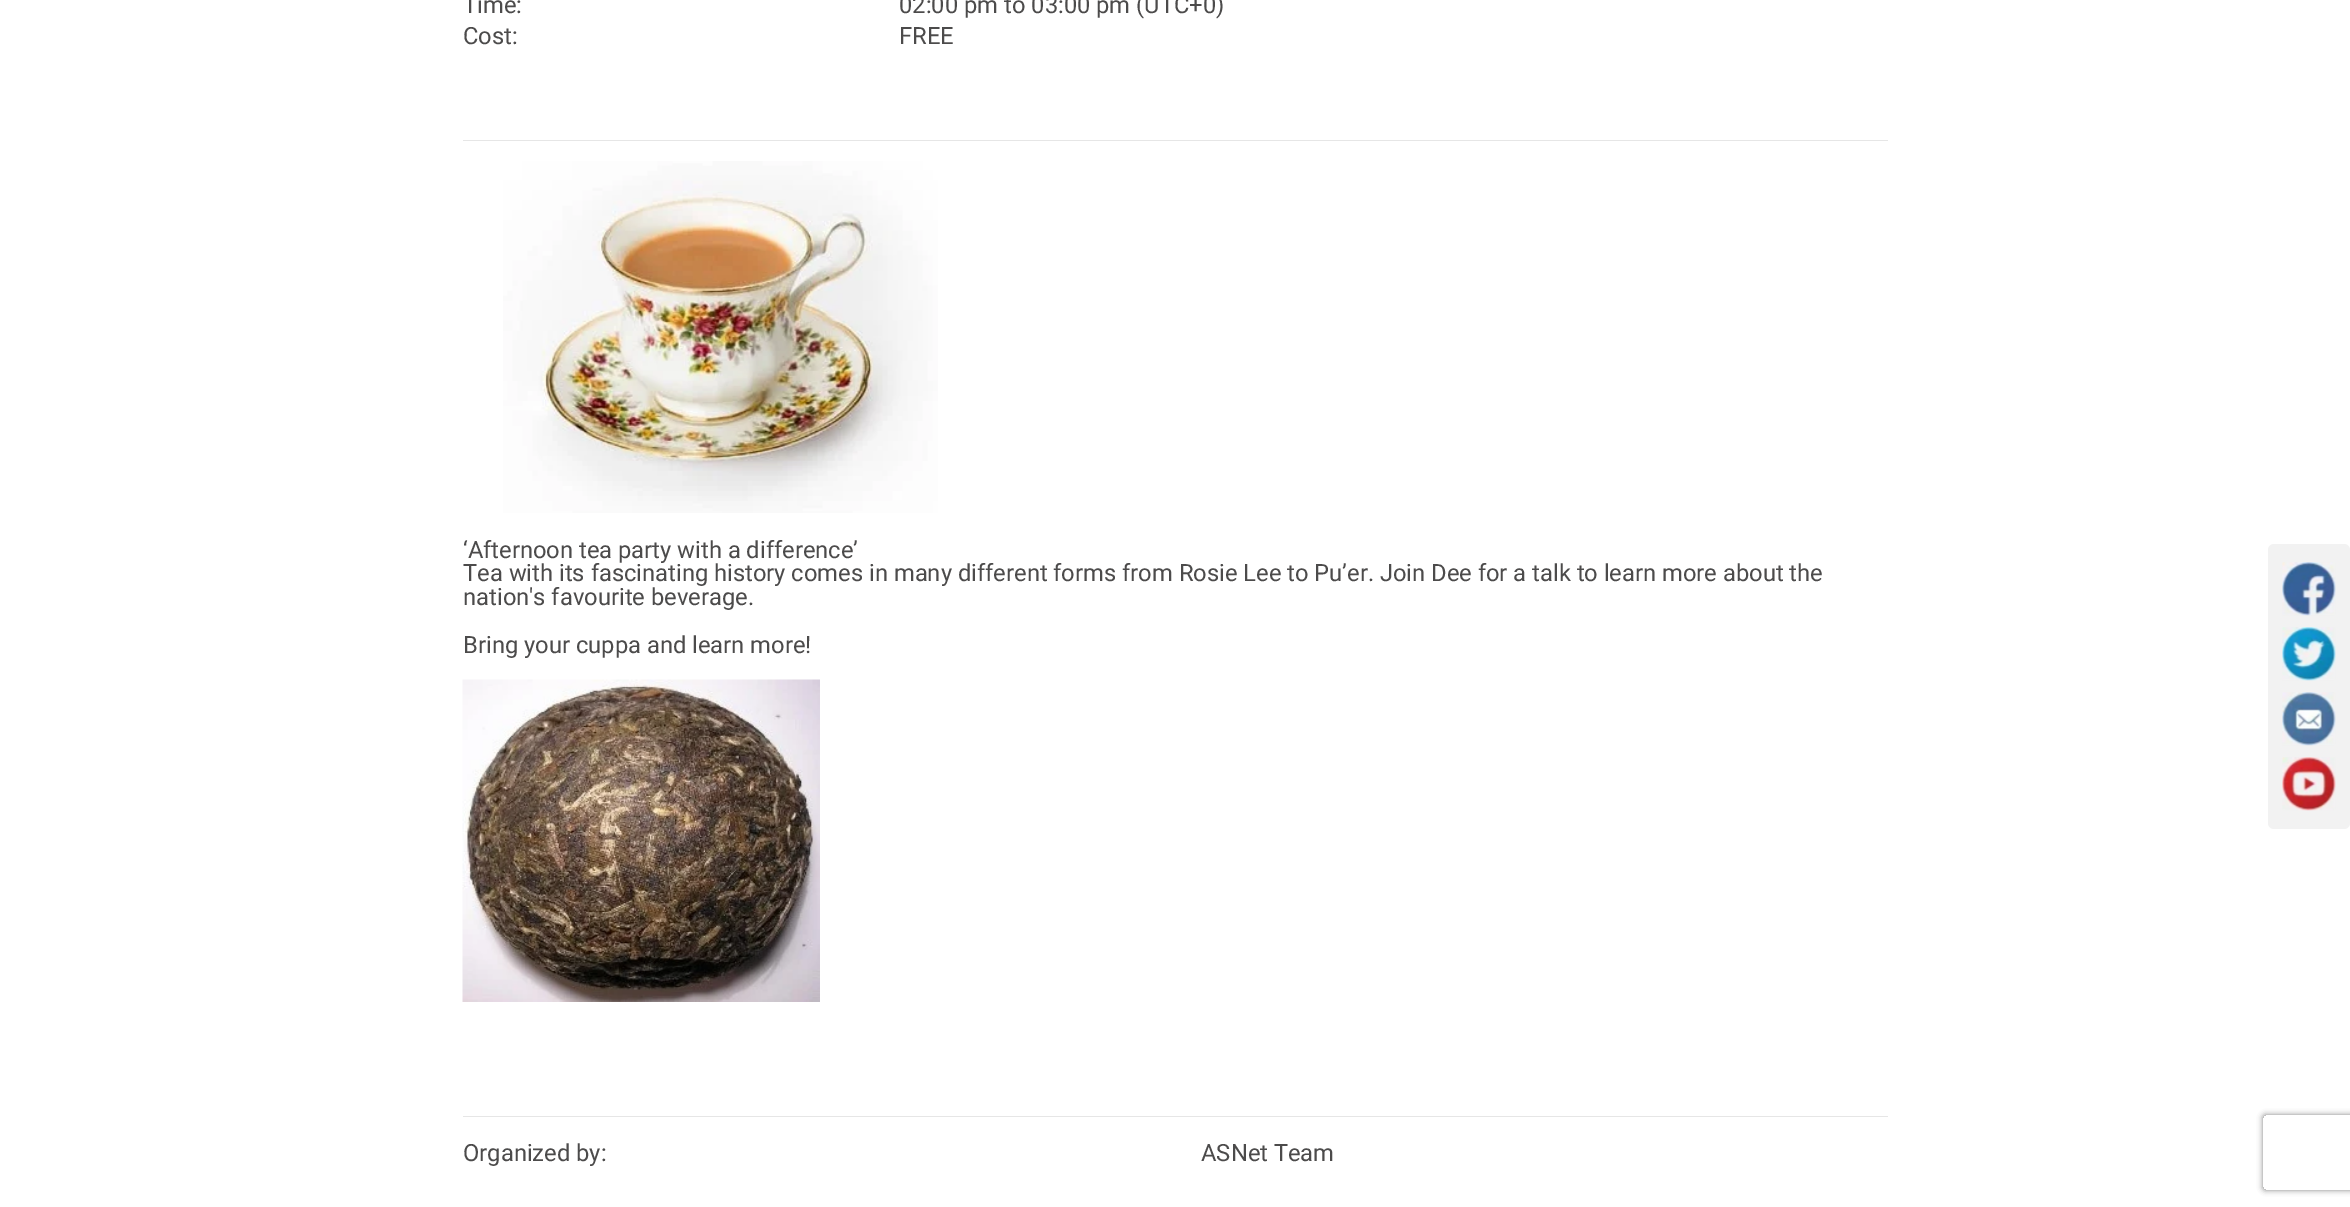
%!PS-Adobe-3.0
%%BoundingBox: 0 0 2350 1207
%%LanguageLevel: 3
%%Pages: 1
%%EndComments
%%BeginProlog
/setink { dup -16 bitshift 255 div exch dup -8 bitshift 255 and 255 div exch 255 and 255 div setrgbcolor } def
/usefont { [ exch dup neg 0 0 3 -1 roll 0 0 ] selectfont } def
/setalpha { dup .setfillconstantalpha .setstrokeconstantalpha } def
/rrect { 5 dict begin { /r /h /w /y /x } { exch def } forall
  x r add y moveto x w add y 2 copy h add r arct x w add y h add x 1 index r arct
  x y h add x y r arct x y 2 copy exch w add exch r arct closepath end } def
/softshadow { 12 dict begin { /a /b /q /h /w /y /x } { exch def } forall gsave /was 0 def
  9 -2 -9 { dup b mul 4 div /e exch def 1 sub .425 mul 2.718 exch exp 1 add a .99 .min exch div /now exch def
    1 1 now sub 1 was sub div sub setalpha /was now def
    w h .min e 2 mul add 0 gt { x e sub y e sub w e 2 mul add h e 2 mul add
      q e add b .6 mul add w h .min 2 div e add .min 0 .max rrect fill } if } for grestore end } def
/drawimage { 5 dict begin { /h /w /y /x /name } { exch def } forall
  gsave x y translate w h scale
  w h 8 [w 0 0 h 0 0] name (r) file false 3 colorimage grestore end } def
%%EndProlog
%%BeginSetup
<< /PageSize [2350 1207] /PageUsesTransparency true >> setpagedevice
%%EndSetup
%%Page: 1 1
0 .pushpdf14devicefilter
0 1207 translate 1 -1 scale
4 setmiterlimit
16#FFFFFF setink
0 0 2350 1207 rectfill
/Roboto-Regular 23.75 usefont
16#4C4B4B setink
[
    [(Time:) 463 13]
    [(02:00 pm to 03:00 pm \(UTC+0\)) 899 13]
    [(Cost:) 463 44]
    [(FREE) 899 44]
] { aload pop moveto show } forall
16#E6E6E6 setink
463 140 1425 1 rectfill
(img1.raw) 503 161 435 352 drawimage
16#4C4B4B setink
[
    [(‘Afternoon tea party with a difference’) 463 558]
    [(Tea with its fascinating history comes in many different forms from Rosie Lee to Pu’er. Join Dee for a talk to learn more about the) 463 581]
    [(nation's favourite beverage.) 463 605]
    [(Bring your cuppa and learn more!) 463 653]
] { aload pop moveto show } forall
(img2.raw) 462 679 358 323 drawimage
16#E6E6E6 setink
463 1116 1425 1 rectfill
16#4C4B4B setink
463 1161 moveto (Organized by:) show
1201 1161 moveto (ASNet Team) show
16#F2F2F2 setink
2268 544 82 285 6 rrect fill
(img3.raw) 2282 562 54 54 drawimage
(img4.raw) 2282 627 54 54 drawimage
(img5.raw) 2282 692 54 54 drawimage
(img6.raw) 2282 757 54 54 drawimage
gsave
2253 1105 moveto 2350 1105 lineto 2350 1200 lineto 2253 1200 lineto closepath 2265.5 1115 moveto 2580.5 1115 lineto 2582 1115 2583 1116 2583 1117.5 curveto 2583 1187.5 lineto 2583 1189 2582 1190 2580.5 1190 curveto 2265.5 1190 lineto 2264 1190 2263 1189 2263 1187.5 curveto 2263 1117.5 lineto 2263 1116 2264 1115 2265.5 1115 curveto closepath eoclip newpath
16#808080 setink
2263 1115 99 75 2.5 3 1 softshadow
grestore
.poppdf14devicefilter showpage
%%EOF
